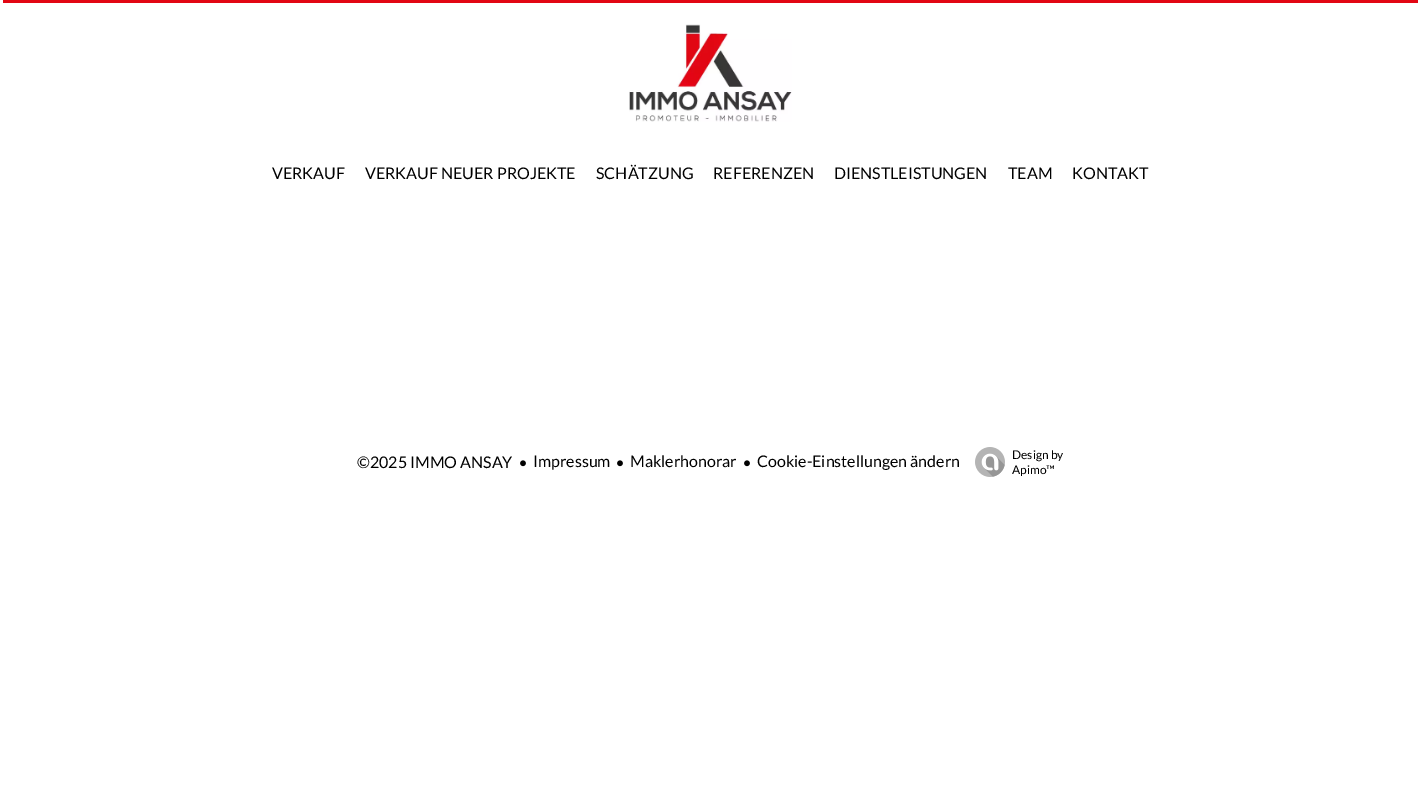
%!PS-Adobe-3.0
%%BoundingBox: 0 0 1421 792
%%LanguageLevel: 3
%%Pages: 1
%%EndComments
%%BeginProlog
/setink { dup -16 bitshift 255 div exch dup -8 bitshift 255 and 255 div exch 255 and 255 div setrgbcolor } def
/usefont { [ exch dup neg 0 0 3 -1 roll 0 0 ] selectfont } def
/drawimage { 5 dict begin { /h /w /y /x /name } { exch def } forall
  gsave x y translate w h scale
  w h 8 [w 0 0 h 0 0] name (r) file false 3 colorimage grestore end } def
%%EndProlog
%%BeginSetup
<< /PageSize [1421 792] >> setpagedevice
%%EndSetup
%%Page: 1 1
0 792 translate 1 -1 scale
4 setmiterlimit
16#FFFFFF setink
0 0 1421 792 rectfill
16#E20613 setink
3 0 1415 3 rectfill
(img1.raw) 629 24 163 98 drawimage
/Lato-Regular 16 usefont
16#000000 setink
[
    [(VERKAUF) 272 179]
    [(VERKAUF NEUER PROJEKTE) 365 179]
    [(SCHÄTZUNG) 596 179]
    [(REFERENZEN) 713 179]
    [(DIENSTLEISTUNGEN) 834 179]
    [(TEAM) 1008 179]
    [(KONTAKT) 1072 179]
    [(©2025 IMMO ANSAY) 357 468]
] { aload pop moveto show } forall
(img2.raw) 520 460 6 7 drawimage
533 467 moveto (Impressum) show
(img2.raw) 617 460 6 7 drawimage
630 467 moveto (Maklerhonorar) show
(img2.raw) 744 460 6 7 drawimage
757 467 moveto (Cookie-Einstellungen ändern) show
(img3.raw) 975 447 30 30 drawimage
/Lato-Regular 12 usefont
1012 459 moveto (Design by) show
1012 474 moveto (Apimo™) show
showpage
%%EOF
